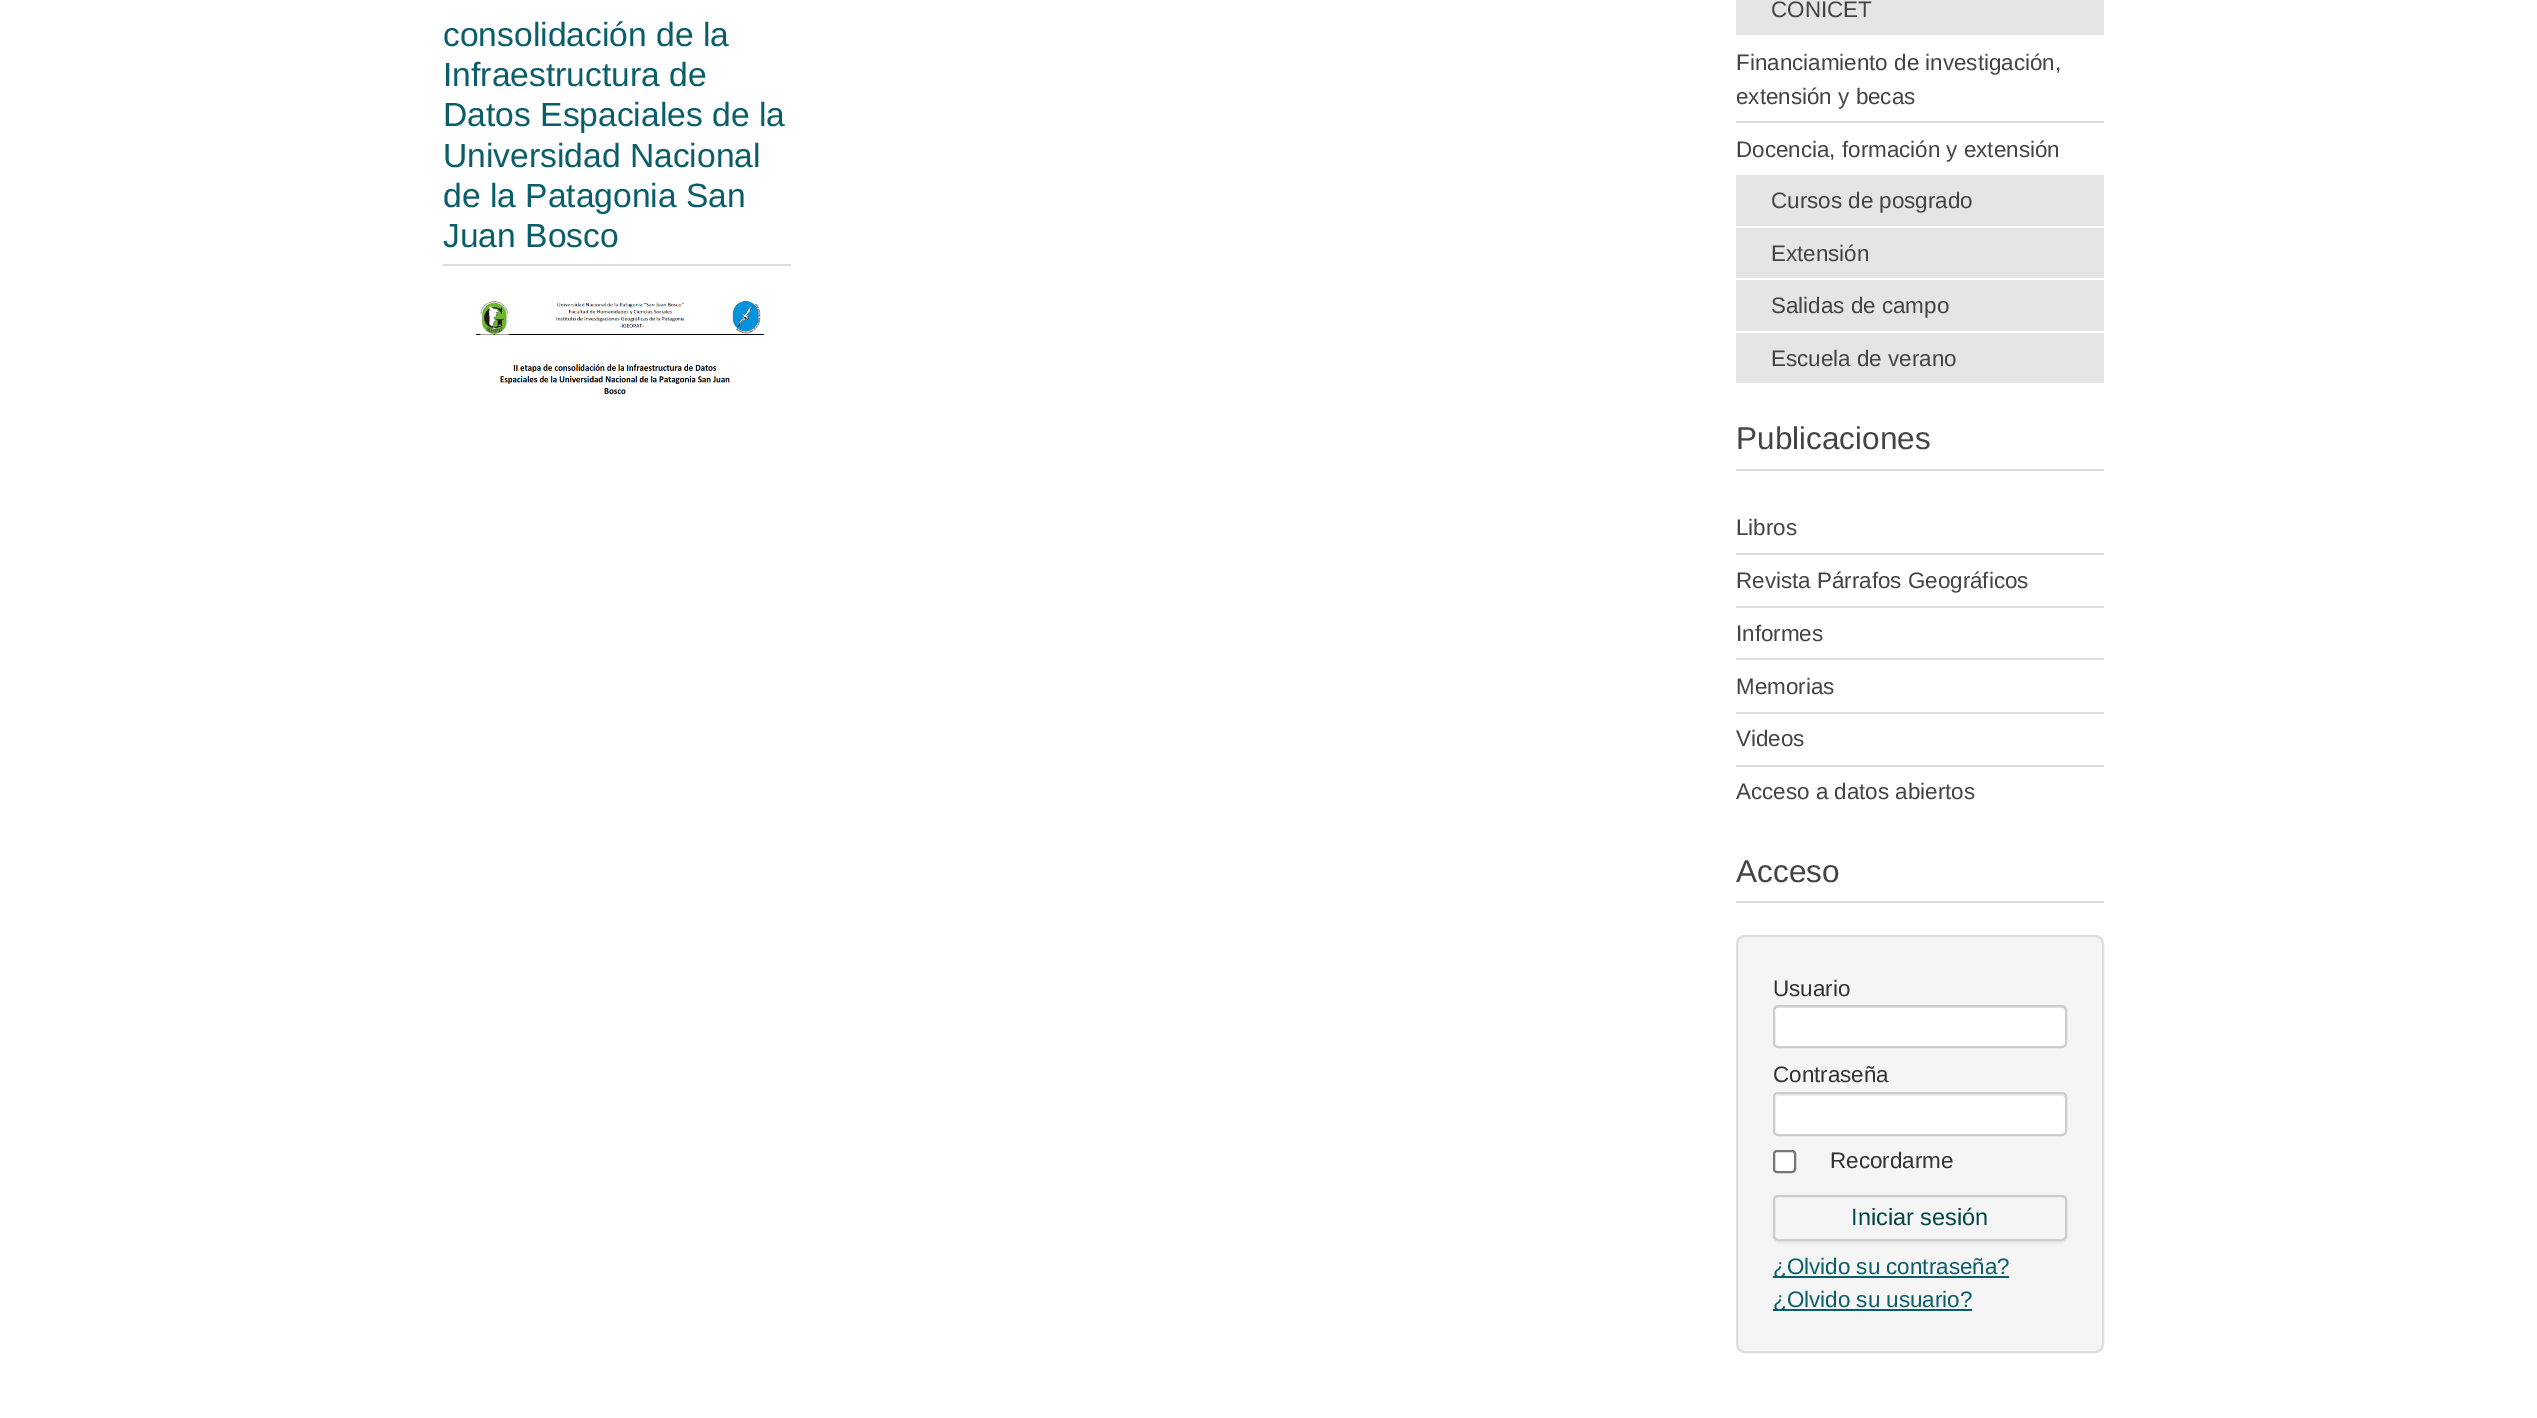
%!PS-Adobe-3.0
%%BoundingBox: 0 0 2537 1418
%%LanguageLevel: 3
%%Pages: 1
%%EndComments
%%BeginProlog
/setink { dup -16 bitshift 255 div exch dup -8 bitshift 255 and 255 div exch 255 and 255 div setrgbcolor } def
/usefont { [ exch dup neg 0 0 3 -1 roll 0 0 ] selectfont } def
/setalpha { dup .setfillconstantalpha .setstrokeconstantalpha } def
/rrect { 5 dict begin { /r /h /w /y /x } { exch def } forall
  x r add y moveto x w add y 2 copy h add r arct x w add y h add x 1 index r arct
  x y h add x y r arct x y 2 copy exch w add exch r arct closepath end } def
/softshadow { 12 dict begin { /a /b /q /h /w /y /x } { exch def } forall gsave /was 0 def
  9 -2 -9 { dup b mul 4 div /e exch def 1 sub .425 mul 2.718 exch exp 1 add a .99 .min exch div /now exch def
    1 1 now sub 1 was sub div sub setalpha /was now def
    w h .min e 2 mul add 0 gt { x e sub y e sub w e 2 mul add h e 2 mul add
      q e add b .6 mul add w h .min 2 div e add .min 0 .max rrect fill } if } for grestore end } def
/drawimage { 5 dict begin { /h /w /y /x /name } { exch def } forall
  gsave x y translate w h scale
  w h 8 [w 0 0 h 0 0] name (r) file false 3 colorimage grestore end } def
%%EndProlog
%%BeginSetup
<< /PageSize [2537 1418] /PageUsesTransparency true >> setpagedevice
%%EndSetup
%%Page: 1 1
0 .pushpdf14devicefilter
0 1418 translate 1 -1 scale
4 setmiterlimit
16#FFFFFF setink
0 0 2537 1418 rectfill
16#DDDDDD setink
443 264 348 2 rectfill
/LiberationSans-Regular 33.6 usefont
16#0A5E69 setink
[
    [(consolidación de la) 443 46]
    [(Infraestructura de) 443 86]
    [(Datos Espaciales de la) 443 126]
    [(Universidad Nacional) 443 167]
    [(de la Patagonia San) 443 207]
    [(Juan Bosco) 443 247]
] { aload pop moveto show } forall
(img1.raw) 476 301 288 94 drawimage
16#E5E5E5 setink
1736 0 368 35 rectfill
/LiberationSans-Regular 22.4 usefont
16#444444 setink
1771 17 moveto (CONICET) show
16#DDDDDD setink
1736 121 368 2 rectfill
16#444444 setink
[
    [(Financiamiento de investigación,) 1736 70]
    [(extensión y becas) 1736 104]
    [(Docencia, formación y extensión) 1736 157]
] { aload pop moveto show } forall
16#E5E5E5 setink
1736 175 368 51 rectfill
16#444444 setink
1771 208 moveto (Cursos de posgrado) show
16#E5E5E5 setink
1736 228 368 50 rectfill
16#444444 setink
1771 261 moveto (Extensión) show
16#E5E5E5 setink
1736 280 368 51 rectfill
16#444444 setink
1771 313 moveto (Salidas de campo) show
16#E5E5E5 setink
1736 333 368 50 rectfill
16#444444 setink
1771 366 moveto (Escuela de verano) show
16#DDDDDD setink
1736 469 368 2 rectfill
/LiberationSans-Regular 31.5 usefont
16#444444 setink
1736 449 moveto (Publicaciones) show
16#DDDDDD setink
1736 553 368 2 rectfill
/LiberationSans-Regular 22.4 usefont
16#444444 setink
1736 535 moveto (Libros) show
16#DDDDDD setink
1736 606 368 2 rectfill
16#444444 setink
1736 588 moveto (Revista Párrafos Geográficos) show
16#DDDDDD setink
1736 658 368 2 rectfill
16#444444 setink
1736 641 moveto (Informes) show
16#DDDDDD setink
1736 712 368 2 rectfill
16#444444 setink
1736 694 moveto (Memorias) show
16#DDDDDD setink
1736 765 368 2 rectfill
16#444444 setink
1736 746 moveto (Videos) show
1736 799 moveto (Acceso a datos abiertos) show
16#DDDDDD setink
1736 901 368 2 rectfill
/LiberationSans-Regular 31.5 usefont
16#444444 setink
1736 882 moveto (Acceso) show
16#F5F5F5 setink
1737 936 366 416 8 rrect gsave fill grestore
16#DDDDDD setink
2 setlinewidth
stroke
/LiberationSans-Regular 22.4 usefont
16#333333 setink
1773 996 moveto (Usuario) show
16#FFFFFF setink
1773 1005 294 43 5 rrect fill
16#ECECEC setink
1778 1008 moveto 2062 1008 lineto 2063 1008 2065 1010 2065 1012 curveto 2065 1010 lineto 2065 1008 2063 1006 2061 1006 curveto 1779 1006 lineto 1777 1006 1775 1008 1775 1009 curveto closepath fill
16#CCCCCC setink
1774 1006 292 41 4 rrect stroke
16#333333 setink
1773 1082 moveto (Contraseña) show
16#FFFFFF setink
1773 1092 294 44 5 rrect fill
16#ECECEC setink
1778 1096 moveto 2062 1096 lineto 2063 1096 2065 1097 2065 1099 curveto 2065 1096 lineto 2063 1094 lineto 1778 1094 lineto 1777 1095 1776 1096 1775 1097 curveto closepath fill
16#CCCCCC setink
1774 1093 292 42 4 rrect stroke
16#FFFFFF setink
1774 1151 21 21 3 rrect gsave fill grestore
16#767676 setink
stroke
16#333333 setink
1830 1168 moveto (Recordarme) show
16#000000 setink
1773 1197 294 46 5 2 0.05 softshadow
16#F5F5F5 setink
1774 1196 292 44 4 rrect gsave fill grestore
16#CCCCCC setink
stroke
/LiberationSans-Regular 23.5 usefont
16#004746 setink
1851 1225 moveto (Iniciar sesión) show
16#0A5E69 setink
1773 1276 236 2 rectfill
/LiberationSans-Regular 22.4 usefont
1773 1274 moveto (¿Olvido su contraseña?) show
1773 1309 199 2 rectfill
1773 1307 moveto (¿Olvido su usuario?) show
.poppdf14devicefilter showpage
%%EOF
